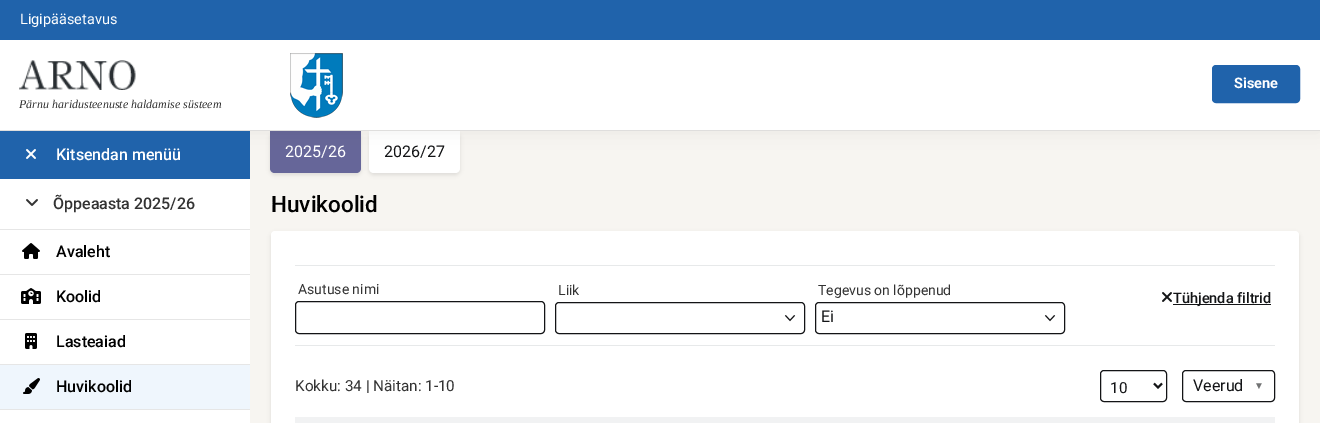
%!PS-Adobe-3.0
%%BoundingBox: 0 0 1320 423
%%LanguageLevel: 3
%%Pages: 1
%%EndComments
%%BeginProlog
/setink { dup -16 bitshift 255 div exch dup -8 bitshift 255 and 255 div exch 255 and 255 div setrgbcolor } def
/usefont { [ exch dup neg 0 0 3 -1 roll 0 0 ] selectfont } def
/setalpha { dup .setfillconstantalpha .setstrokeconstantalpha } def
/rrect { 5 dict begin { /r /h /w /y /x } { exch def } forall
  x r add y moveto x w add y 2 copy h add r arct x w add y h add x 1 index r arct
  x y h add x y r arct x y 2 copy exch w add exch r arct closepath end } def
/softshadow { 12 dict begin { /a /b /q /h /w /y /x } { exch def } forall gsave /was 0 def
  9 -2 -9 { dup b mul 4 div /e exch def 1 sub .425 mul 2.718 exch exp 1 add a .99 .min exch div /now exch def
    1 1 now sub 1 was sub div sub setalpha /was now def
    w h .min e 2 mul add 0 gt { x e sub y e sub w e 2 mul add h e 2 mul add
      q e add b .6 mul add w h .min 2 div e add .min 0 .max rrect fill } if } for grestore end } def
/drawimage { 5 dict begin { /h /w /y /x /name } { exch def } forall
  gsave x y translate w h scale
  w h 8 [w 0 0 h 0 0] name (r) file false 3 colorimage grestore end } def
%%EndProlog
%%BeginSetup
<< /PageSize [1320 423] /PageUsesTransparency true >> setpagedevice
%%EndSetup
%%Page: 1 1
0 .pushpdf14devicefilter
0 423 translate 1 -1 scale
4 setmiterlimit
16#F7F5F1 setink
0 0 1320 423 rectfill
16#000000 setink
270 133 91 42 5 2 0.1 softshadow
16#666699 setink
270 131 moveto 361 131 lineto 361 168 lineto 361 171 359 173 356 173 curveto 275 173 lineto 272 173 270 171 270 168 curveto closepath fill
16#000000 setink
369 133 91 42 5 2 0.1 softshadow
16#FFFFFF setink
369 131 moveto 460 131 lineto 460 168 lineto 460 171 458 173 455 173 curveto 374 173 lineto 371 173 369 171 369 168 curveto closepath fill
16#000000 setink
0 1 1320 131 0 10 0.05 softshadow
[
    [0 40 1320 90 16#FFFFFF]
    [0 130 1320 1 16#DFDEDD]
    [0 0 1320 40 16#2063AB]
] { aload pop setink rectfill } forall
/Roboto-Regular 14.5 usefont
16#FFFFFF setink
20 24 moveto (Ligipääsetavus) show
16#2063AB setink
1213 66 86 36 3 rrect gsave fill grestore
2 setlinewidth
stroke
/Roboto-Bold 14.5 usefont
16#FFFFFF setink
1234 88 moveto (Sisene) show
(img1.raw) 19 60 117 30 drawimage
/LiberationSerif-Italic 12 usefont
16#333333 setink
19 108 moveto (Pärnu haridusteenuste haldamise süsteem) show
(img2.raw) 290 53 53 65 drawimage
16#FFFFFF setink
0 179 250 244 rectfill
16#2063AB setink
0 131 250 48 rectfill
(img3.raw) 26 149 10 10 drawimage
/Roboto-Medium 16 usefont
16#FFFFFF setink
56 160 moveto (Kitsendan menüü) show
16#E6E6E6 setink
0 229 250 1 rectfill
(img4.raw) 26 199 12 7 drawimage
16#333333 setink
53 209 moveto (Õppeaasta 2025/26) show
16#E6E6E6 setink
0 274 250 1 rectfill
(img5.raw) 22 243 18 16 drawimage
16#000000 setink
56 257 moveto (Avaleht) show
16#E6E6E6 setink
0 319 250 1 rectfill
(img6.raw) 21 288 20 16 drawimage
16#000000 setink
56 302 moveto (Koolid) show
16#E6E6E6 setink
0 364 250 1 rectfill
(img7.raw) 25 333 12 16 drawimage
16#000000 setink
56 347 moveto (Lasteaiad) show
16#E6E6E6 setink
0 409 250 1 rectfill
16#EFF6FD setink
0 365 250 44 rectfill
(img8.raw) 23 378 17 16 drawimage
16#000000 setink
56 392 moveto (Huvikoolid) show
/Roboto-Regular 16 usefont
16#FFFFFF setink
285 157 moveto (2025/26) show
16#131416 setink
384 157 moveto (2026/27) show
/Roboto-Medium 22.5 usefont
16#000000 setink
271 212 moveto (Huvikoolid) show
271 233 1028 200 4 2 0.1 softshadow
16#FFFFFF setink
271 231 1028 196 4 rrect fill
16#E7E9EA setink
295 265 980 1 rectfill
295 345 980 1 rectfill
/Roboto-Regular 14 usefont
16#333333 setink
298 294 moveto (Asutuse nimi) show
16#131416 setink
1 setlinewidth
295.5 301.5 249 32 3.5 rrect stroke
16#333333 setink
558 295 moveto (Liik) show
16#131416 setink
555.5 302.5 249 31 3.5 rrect stroke
(img9.raw) 784 315 12 7 drawimage
16#333333 setink
818 295 moveto (Tegevus on lõppenud) show
16#131416 setink
815.5 302.5 249 31 3.5 rrect stroke
/Roboto-Regular 16 usefont
821 322 moveto (Ei) show
(img9.raw) 1044 315 12 7 drawimage
(img10.raw) 1162 292 10 10 drawimage
1173 304 98 1 rectfill
/Roboto-Medium 14.5 usefont
1173 303 moveto (Tühjenda filtrid) show
/Roboto-Regular 15.25 usefont
16#333333 setink
295 391 moveto (Kokku: 34 | Näitan: 1-10) show
16#131416 setink
1100.5 370.5 66 31 3.5 rrect stroke
2 setlinewidth
1154 383.5 moveto 1158 387.5 lineto 1162 383.5 lineto stroke
1110 393 moveto (10) show
1 setlinewidth
1182.5 370.5 92 31 3.5 rrect stroke
/Roboto-Regular 16 usefont
1193 391 moveto (Veerud) show
/LiberationSans-Regular 10 usefont
16#717273 setink
1254 389 moveto (▼) show
16#F1F2F3 setink
295 417 980 6 rectfill
.poppdf14devicefilter showpage
%%EOF
